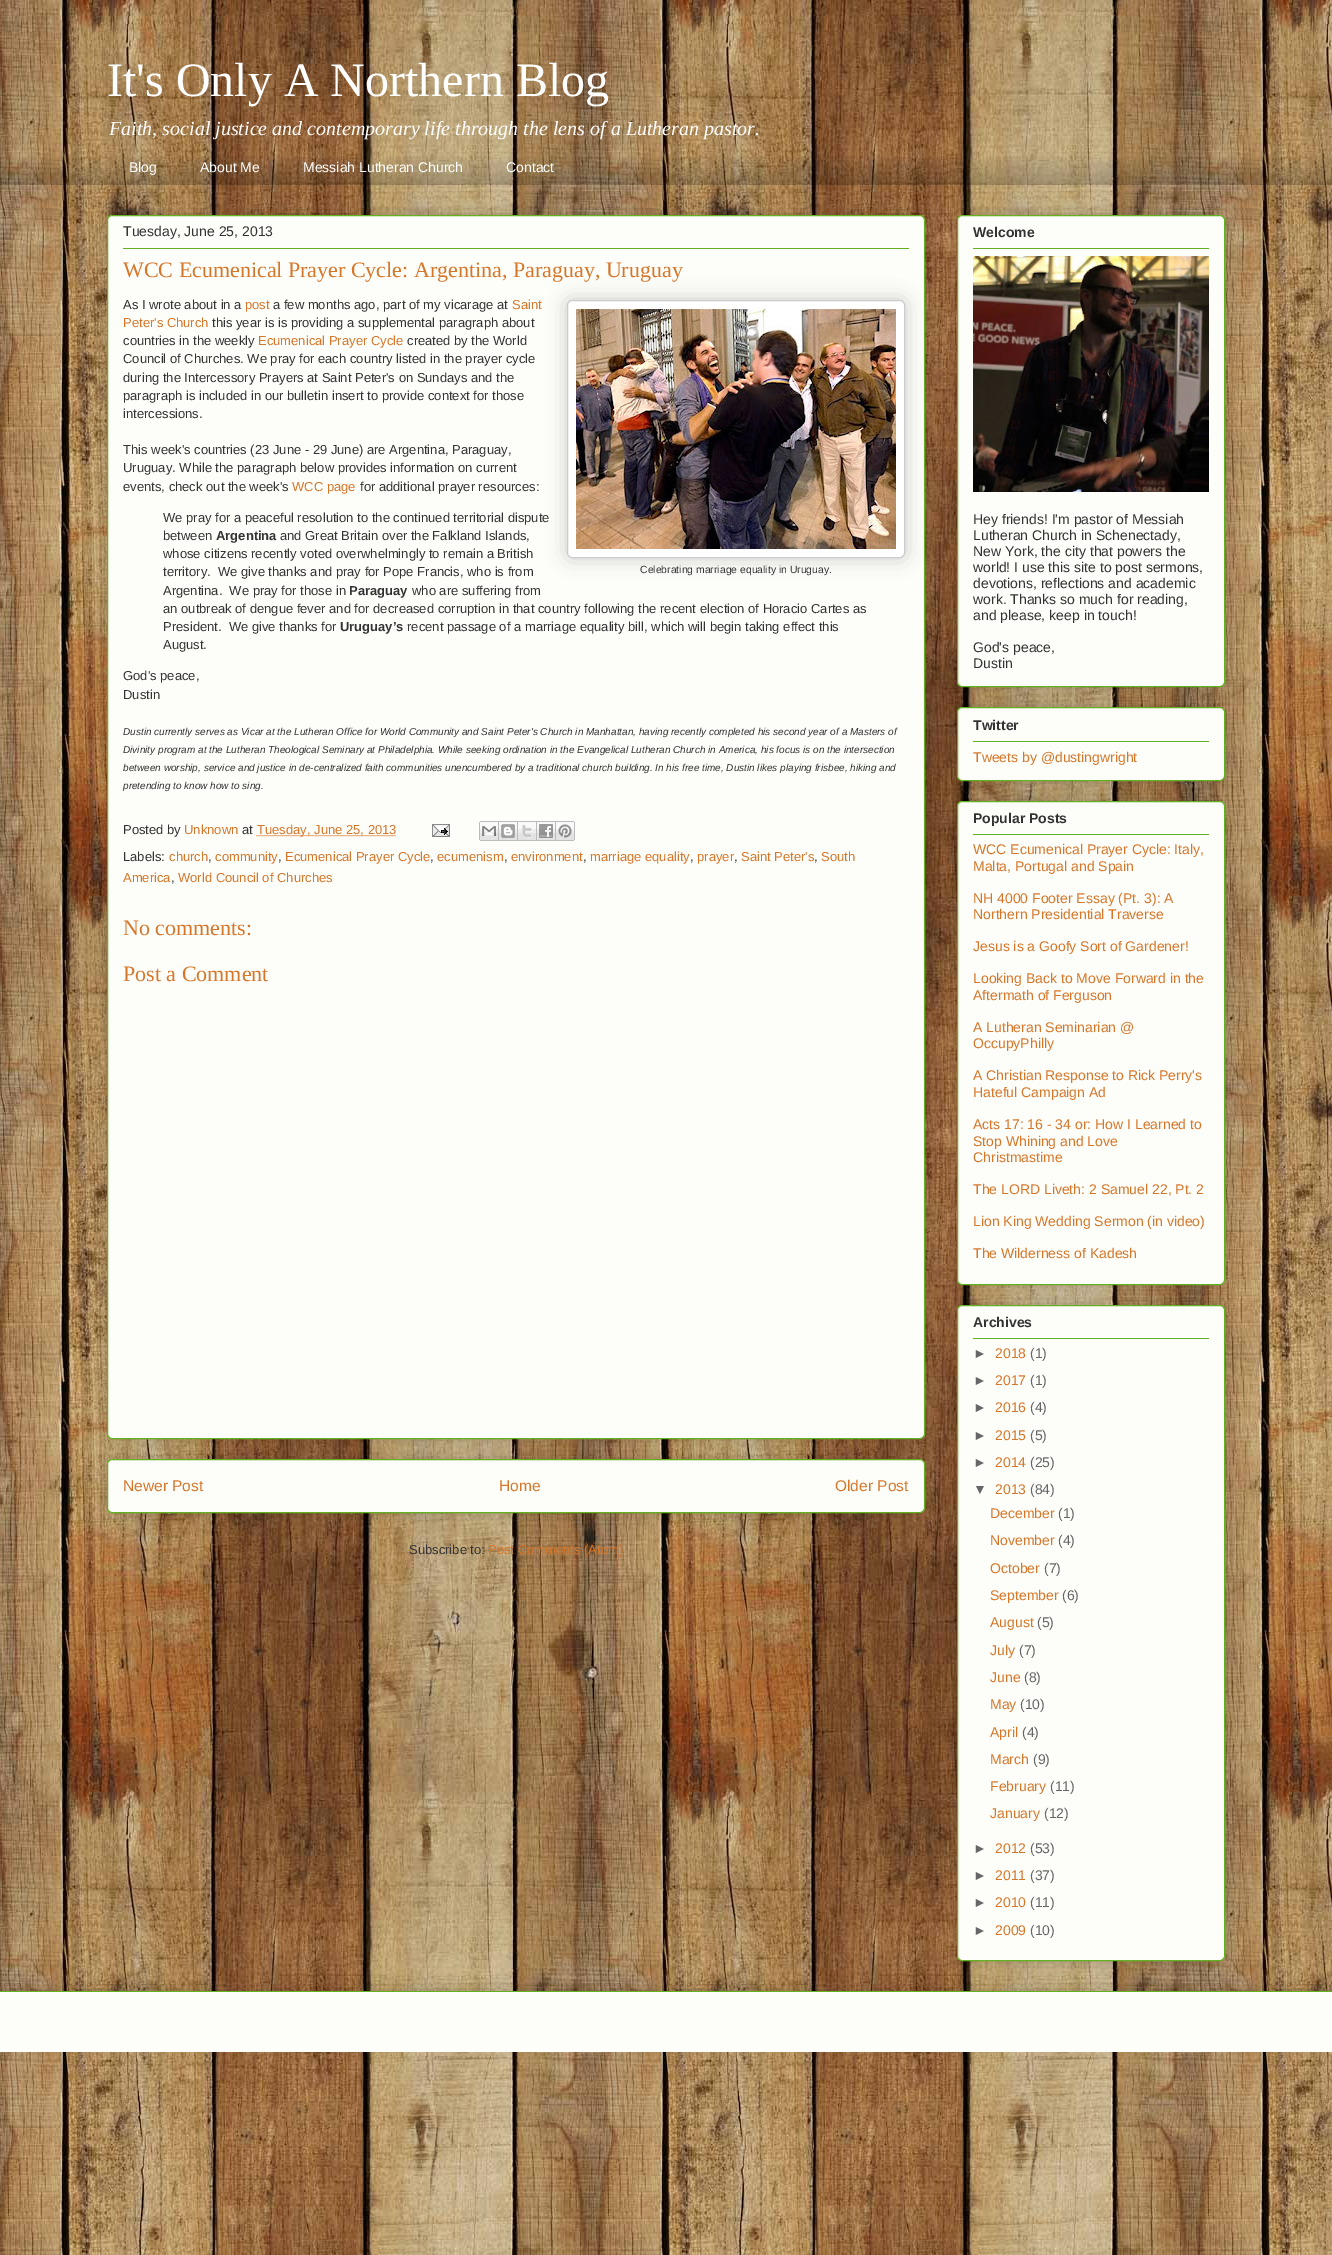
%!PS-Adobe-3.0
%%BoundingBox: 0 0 1332 2255
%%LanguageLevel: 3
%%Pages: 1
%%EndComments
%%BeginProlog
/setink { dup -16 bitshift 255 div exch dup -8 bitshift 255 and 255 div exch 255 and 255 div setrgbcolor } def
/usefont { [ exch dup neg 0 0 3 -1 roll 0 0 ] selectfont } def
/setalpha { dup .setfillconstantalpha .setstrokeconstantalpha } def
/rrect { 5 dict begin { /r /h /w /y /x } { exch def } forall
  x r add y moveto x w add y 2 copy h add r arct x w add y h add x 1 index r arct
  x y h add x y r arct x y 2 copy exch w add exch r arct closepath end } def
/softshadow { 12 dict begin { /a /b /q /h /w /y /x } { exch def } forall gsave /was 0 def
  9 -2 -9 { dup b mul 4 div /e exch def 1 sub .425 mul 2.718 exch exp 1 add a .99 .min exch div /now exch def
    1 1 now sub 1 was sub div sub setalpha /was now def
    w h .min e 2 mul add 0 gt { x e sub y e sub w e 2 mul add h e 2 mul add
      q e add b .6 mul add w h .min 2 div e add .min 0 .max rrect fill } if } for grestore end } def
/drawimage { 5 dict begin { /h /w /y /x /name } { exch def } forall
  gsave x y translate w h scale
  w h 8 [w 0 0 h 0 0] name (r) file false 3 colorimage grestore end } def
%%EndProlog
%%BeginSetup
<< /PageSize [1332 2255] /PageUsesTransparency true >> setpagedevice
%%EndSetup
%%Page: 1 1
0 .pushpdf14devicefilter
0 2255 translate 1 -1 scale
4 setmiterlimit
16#FFFFFF setink
0 0 1332 2255 rectfill
(img1.raw) 0 0 1332 2255 drawimage
/LiberationSerif-Regular 48 usefont
107 96 moveto (It's Only A Northern Blog) show
/LiberationSerif-Italic 20 usefont
109 135 moveto (Faith, social justice and contemporary life through the lens of a Lutheran pastor.) show
(img2.raw) 0 156 1332 29 drawimage
/LiberationSans-Regular 14 usefont
[
    [(Blog) 129 172]
    [(About Me) 200 172]
    [(Messiah Lutheran Church) 303 172]
    [(Contact) 506 172]
] { aload pop moveto show } forall
16#000000 setink
107 1459 818 54 5 10 0.2 softshadow
16#FDFEFA setink
107.5 1459.5 817 53 4.5 rrect gsave fill grestore
16#63B122 setink
stroke
16#000000 setink
107 215 818 1224 5 10 0.2 softshadow
16#FDFEFA setink
107.5 215.5 817 1223 4.5 rrect gsave fill grestore
16#63B122 setink
stroke
16#333333 setink
123 236 moveto (Tuesday, June 25, 2013) show
16#63B122 setink
123 248 786 1 rectfill
/LiberationSerif-Regular 22 usefont
16#D57629 setink
123 277 moveto (WCC Ecumenical Prayer Cycle: Argentina, Paraguay, Uruguay) show
/LiberationSans-Regular 13 usefont
16#333333 setink
123 309 moveto (As I wrote about in a) show
16#D57629 setink
245 309 moveto (post) show
16#333333 setink
273 309 moveto (a few months ago, part of my vicarage at) show
16#D57629 setink
512 309 moveto (Saint) show
123 327 moveto (Peter's Church) show
16#333333 setink
212 327 moveto (this year is is providing a supplemental paragraph about) show
123 345 moveto (countries in the weekly) show
16#D57629 setink
258 345 moveto (Ecumenical Prayer Cycle) show
16#333333 setink
[
    [(created by the World) 407 345]
    [(Council of Churches. We pray for each country listed in the prayer cycle) 123 363]
    [(during the Intercessory Prayers at Saint Peter's on Sundays and the) 123 382]
    [(paragraph is included in our bulletin insert to provide context for those) 123 400]
    [(intercessions.) 123 418]
    [(This week's countries \(23 June - 29 June\) are Argentina, Paraguay,) 123 454]
    [(Uruguay. While the paragraph below provides information on current) 123 472]
    [(events, check out the week's) 123 491]
] { aload pop moveto show } forall
16#D57629 setink
292 491 moveto (WCC page) show
16#333333 setink
[
    [(for additional prayer resources:) 360 491]
    [(We pray for a peaceful resolution to the continued territorial dispute) 163 522]
    [(between) 163 540]
] { aload pop moveto show } forall
/LiberationSans-Bold 13 usefont
216 540 moveto (Argentina) show
/LiberationSans-Regular 13 usefont
[
    [(and Great Britain over the Falkland Islands,) 280 540]
    [(whose citizens recently voted overwhelmingly to remain a British) 163 558]
    [(territory.  We give thanks and pray for Pope Francis, who is from) 163 576]
    [(Argentina.  We pray for those in) 163 595]
] { aload pop moveto show } forall
/LiberationSans-Bold 13 usefont
349 595 moveto (Paraguay) show
/LiberationSans-Regular 13 usefont
[
    [(who are suffering from) 412 595]
    [(an outbreak of dengue fever and for decreased corruption in that country following the recent election of Horacio Cartes as) 163 613]
    [(President.  We give thanks for) 163 631]
] { aload pop moveto show } forall
/LiberationSans-Bold 13 usefont
340 631 moveto (Uruguay’s) show
/LiberationSans-Regular 13 usefont
[
    [(recent passage of a marriage equality bill, which will begin taking effect this) 407 631]
    [(August.) 163 649]
    [(God's peace,) 123 680]
    [(Dustin) 123 699]
] { aload pop moveto show } forall
/LiberationSans-Italic 10 usefont
[
    [(Dustin currently serves as Vicar at the Lutheran Office for World Community and Saint Peter's Church in Manhattan, having recently completed his second year of a Masters of) 123 735]
    [(Divinity program at the Lutheran Theological Seminary at Philadelphia. While seeking ordination in the Evangelical Lutheran Church in America, his focus is on the intersection) 123 753]
    [(between worship, service and justice in de-centralized faith communities unencumbered by a traditional church building. In his free time, Dustin likes playing frisbee, hiking and) 123 771]
    [(pretending to know how to sing.) 123 789]
] { aload pop moveto show } forall
16#000000 setink
567 300 338 258 5 10 0.2 softshadow
16#FFFFFF setink
567.5 300.5 337 257 4.5 rrect gsave fill grestore
16#CCCCCC setink
stroke
(img3.raw) 576 309 320 240 drawimage
/LiberationSans-Regular 10.4 usefont
16#333333 setink
640 573 moveto (Celebrating marriage equality in Uruguay.) show
/LiberationSans-Regular 13 usefont
123 834 moveto (Posted by) show
16#D57629 setink
184 834 moveto (Unknown) show
16#333333 setink
242 834 moveto (at) show
16#D57629 setink
[1 1] 0 setdash
256.5 835.5 moveto 396 835.5 lineto stroke
257 834 moveto (Tuesday, June 25, 2013) show
(img4.raw) 432 824 18 13 drawimage
(img5.raw) 479 821 20 20 drawimage
(img6.raw) 499 821 19 20 drawimage
(img7.raw) 518 821 19 20 drawimage
(img8.raw) 537 821 19 20 drawimage
(img9.raw) 556 821 19 20 drawimage
16#333333 setink
123 861 moveto (Labels:) show
16#D57629 setink
169 861 moveto (church) show
16#333333 setink
208 861 moveto (,) show
16#D57629 setink
215 861 moveto (community) show
16#333333 setink
278 861 moveto (,) show
16#D57629 setink
285 861 moveto (Ecumenical Prayer Cycle) show
16#333333 setink
430 861 moveto (,) show
16#D57629 setink
437 861 moveto (ecumenism) show
16#333333 setink
504 861 moveto (,) show
16#D57629 setink
511 861 moveto (environment) show
16#333333 setink
583 861 moveto (,) show
16#D57629 setink
590 861 moveto (marriage equality) show
16#333333 setink
690 861 moveto (,) show
16#D57629 setink
697 861 moveto (prayer) show
16#333333 setink
734 861 moveto (,) show
16#D57629 setink
741 861 moveto (Saint Peter's) show
16#333333 setink
814 861 moveto (,) show
16#D57629 setink
821 861 moveto (South) show
123 882 moveto (America) show
16#333333 setink
171 882 moveto (,) show
16#D57629 setink
178 882 moveto (World Council of Churches) show
/LiberationSerif-Regular 22 usefont
123 935 moveto (No comments:) show
123 981 moveto (Post a Comment) show
/LiberationSans-Regular 15.5 usefont
[
    [(Newer Post) 123 1491]
    [(Home) 499 1491]
    [(Older Post) 835 1491]
] { aload pop moveto show } forall
/LiberationSans-Regular 13 usefont
16#333333 setink
409 1554 moveto (Subscribe to:) show
16#D57629 setink
488 1554 moveto (Post Comments \(Atom\)) show
16#000000 setink
957 215 268 472 5 10 0.2 softshadow
16#FDFEFA setink
957.5 215.5 267 471 4.5 rrect gsave fill grestore
16#63B122 setink
[] 0 setdash
stroke
/LiberationSans-Bold 14 usefont
16#333333 setink
973 237 moveto (Welcome) show
16#63B122 setink
973 248 236 1 rectfill
(img10.raw) 973 256 236 236 drawimage
/LiberationSans-Regular 14 usefont
16#333333 setink
[
    [(Hey friends! I'm pastor of Messiah) 973 524]
    [(Lutheran Church in Schenectady,) 973 540]
    [(New York, the city that powers the) 973 556]
    [(world! I use this site to post sermons,) 973 572]
    [(devotions, reflections and academic) 973 588]
    [(work. Thanks so much for reading,) 973 604]
    [(and please, keep in touch!) 973 620]
    [(God's peace,) 973 652]
    [(Dustin) 973 668]
] { aload pop moveto show } forall
16#000000 setink
957 707 268 74 5 10 0.2 softshadow
16#FDFEFA setink
957.5 707.5 267 73 4.5 rrect gsave fill grestore
16#63B122 setink
stroke
/LiberationSans-Bold 14 usefont
16#333333 setink
973 730 moveto (Twitter) show
16#63B122 setink
973 741 236 1 rectfill
/LiberationSans-Regular 14 usefont
16#D57629 setink
973 762 moveto (Tweets by @dustingwright) show
16#000000 setink
957 801 268 484 5 10 0.2 softshadow
16#FDFEFA setink
957.5 801.5 267 483 4.5 rrect gsave fill grestore
16#63B122 setink
stroke
/LiberationSans-Bold 14 usefont
16#333333 setink
973 823 moveto (Popular Posts) show
16#63B122 setink
973 834 236 1 rectfill
/LiberationSans-Regular 14 usefont
16#D57629 setink
[
    [(WCC Ecumenical Prayer Cycle: Italy,) 973 854]
    [(Malta, Portugal and Spain) 973 871]
    [(NH 4000 Footer Essay \(Pt. 3\): A) 973 903]
    [(Northern Presidential Traverse) 973 919]
    [(Jesus is a Goofy Sort of Gardener!) 973 951]
    [(Looking Back to Move Forward in the) 973 983]
    [(Aftermath of Ferguson) 973 1000]
    [(A Lutheran Seminarian @) 973 1032]
    [(OccupyPhilly) 973 1048]
    [(A Christian Response to Rick Perry's) 973 1080]
    [(Hateful Campaign Ad) 973 1097]
    [(Acts 17: 16 - 34 or: How I Learned to) 973 1129]
    [(Stop Whining and Love) 973 1146]
    [(Christmastime) 973 1162]
    [(The LORD Liveth: 2 Samuel 22, Pt. 2) 973 1194]
    [(Lion King Wedding Sermon \(in video\)) 973 1226]
    [(The Wilderness of Kadesh) 973 1258]
] { aload pop moveto show } forall
16#000000 setink
957 1305 268 656 5 10 0.2 softshadow
16#FDFEFA setink
957.5 1305.5 267 655 4.5 rrect gsave fill grestore
16#63B122 setink
stroke
/LiberationSans-Bold 14 usefont
16#333333 setink
973 1327 moveto (Archives) show
16#63B122 setink
973 1338 236 1 rectfill
/LiberationSans-Regular 14 usefont
16#666666 setink
973 1358 moveto (►) show
16#D57629 setink
995 1358 moveto (2018) show
16#666666 setink
1030 1358 moveto (\(1\)) show
973 1385 moveto (►) show
16#D57629 setink
995 1385 moveto (2017) show
16#666666 setink
1030 1385 moveto (\(1\)) show
973 1412 moveto (►) show
16#D57629 setink
995 1412 moveto (2016) show
16#666666 setink
1030 1412 moveto (\(4\)) show
973 1440 moveto (►) show
16#D57629 setink
995 1440 moveto (2015) show
16#666666 setink
1030 1440 moveto (\(5\)) show
973 1467 moveto (►) show
16#D57629 setink
995 1467 moveto (2014) show
16#666666 setink
1030 1467 moveto (\(25\)) show
973 1494 moveto (▼) show
16#D57629 setink
995 1494 moveto (2013) show
16#666666 setink
1030 1494 moveto (\(84\)) show
16#D57629 setink
990 1518 moveto (December) show
16#666666 setink
1058 1518 moveto (\(1\)) show
16#D57629 setink
990 1545 moveto (November) show
16#666666 setink
1058 1545 moveto (\(4\)) show
16#D57629 setink
990 1573 moveto (October) show
16#666666 setink
1044 1573 moveto (\(7\)) show
16#D57629 setink
990 1600 moveto (September) show
16#666666 setink
1062 1600 moveto (\(6\)) show
16#D57629 setink
990 1627 moveto (August) show
16#666666 setink
1037 1627 moveto (\(5\)) show
16#D57629 setink
990 1655 moveto (July) show
16#666666 setink
1019 1655 moveto (\(7\)) show
16#D57629 setink
990 1682 moveto (June) show
16#666666 setink
1024 1682 moveto (\(8\)) show
16#D57629 setink
990 1709 moveto (May) show
16#666666 setink
1020 1709 moveto (\(10\)) show
16#D57629 setink
990 1737 moveto (April) show
16#666666 setink
1022 1737 moveto (\(4\)) show
16#D57629 setink
990 1764 moveto (March) show
16#666666 setink
1033 1764 moveto (\(9\)) show
16#D57629 setink
990 1791 moveto (February) show
16#666666 setink
1050 1791 moveto (\(11\)) show
16#D57629 setink
990 1818 moveto (January) show
16#666666 setink
1044 1818 moveto (\(12\)) show
973 1853 moveto (►) show
16#D57629 setink
995 1853 moveto (2012) show
16#666666 setink
1030 1853 moveto (\(53\)) show
973 1880 moveto (►) show
16#D57629 setink
995 1880 moveto (2011) show
16#666666 setink
1030 1880 moveto (\(37\)) show
973 1907 moveto (►) show
16#D57629 setink
995 1907 moveto (2010) show
16#666666 setink
1030 1907 moveto (\(11\)) show
973 1935 moveto (►) show
16#D57629 setink
995 1935 moveto (2009) show
16#666666 setink
1030 1935 moveto (\(10\)) show
gsave
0 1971 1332 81 rectclip
16#000000 setink
-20 1991 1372 61 0 10 0.2 softshadow
grestore
16#FDFEFA setink
0 1992 1332 60 rectfill
16#63B122 setink
0 1991 1332 1 rectfill
.poppdf14devicefilter showpage
%%EOF
